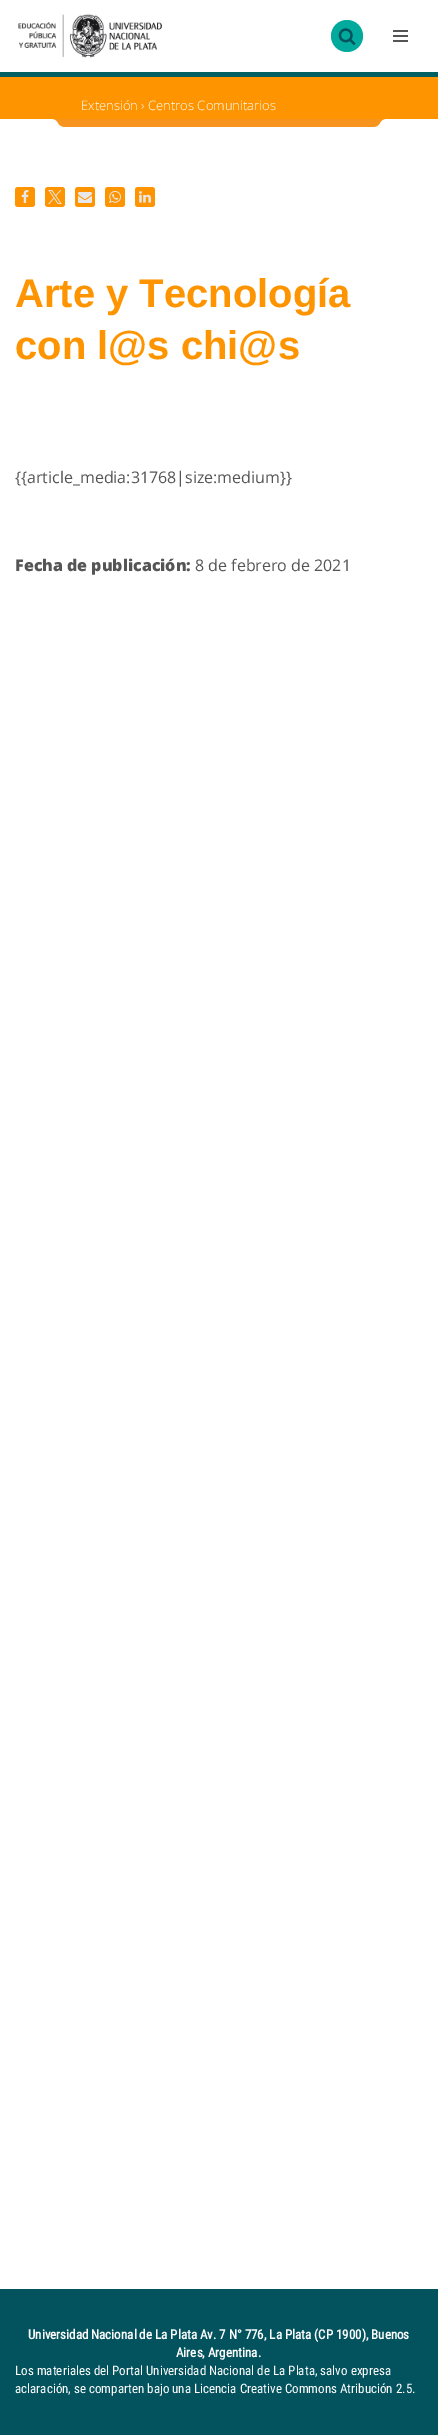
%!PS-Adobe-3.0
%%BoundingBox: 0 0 438 2435
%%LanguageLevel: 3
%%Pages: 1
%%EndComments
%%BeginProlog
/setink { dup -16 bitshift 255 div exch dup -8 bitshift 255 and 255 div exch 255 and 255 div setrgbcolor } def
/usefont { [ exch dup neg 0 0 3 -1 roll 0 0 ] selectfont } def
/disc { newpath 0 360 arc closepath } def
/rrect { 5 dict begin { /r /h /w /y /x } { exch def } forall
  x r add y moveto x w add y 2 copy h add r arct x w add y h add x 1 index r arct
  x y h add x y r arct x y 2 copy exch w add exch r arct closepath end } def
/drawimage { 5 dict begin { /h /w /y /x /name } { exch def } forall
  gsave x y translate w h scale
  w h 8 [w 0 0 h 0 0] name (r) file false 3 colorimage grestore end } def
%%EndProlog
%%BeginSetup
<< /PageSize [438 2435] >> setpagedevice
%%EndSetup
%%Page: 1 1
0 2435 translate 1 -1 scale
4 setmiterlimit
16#FFFFFF setink
0 0 438 2435 rectfill
(img1.raw) 18 14 144 44 drawimage
16#02AA9D setink
347 36 16 disc fill
(img2.raw) 338 28 18 17 drawimage
[
    [393 30 15 2 16#555555]
    [393 35 15 2 16#555555]
    [393 40 15 2 16#555555]
    [0 77 438 42 16#FD9400]
    [0 72 438 5 16#005F61]
] { aload pop setink rectfill } forall
/OpenSans-Light 13 usefont
16#FFFFFF setink
81 110 moveto (Extensión › Centros Comunitarios) show
(img3.raw) 52 119 334 8 drawimage
16#FD9400 setink
15 187 20 20 3 rrect fill
(img4.raw) 21 190 8 13 drawimage
45 187 20 20 3 rrect fill
(img5.raw) 48 190 14 14 drawimage
75 187 20 20 3 rrect fill
(img6.raw) 78 192 14 11 drawimage
105 187 20 20 3 rrect fill
(img7.raw) 109 191 12 12 drawimage
135 187 20 20 3 rrect fill
(img8.raw) 139 191 12 12 drawimage
/LiberationSans-Bold 40 usefont
15 307 moveto (Arte y Tecnología) show
15 359 moveto (con l@s chi@s) show
/OpenSans-Regular 16 usefont
16#555555 setink
15 483 moveto ({{article_media:31768|size:medium}}) show
/OpenSans-ExtraBold 16 usefont
15 571 moveto (Fecha de publicación:) show
/OpenSans-Regular 16 usefont
195 571 moveto (8 de febrero de 2021) show
16#02535E setink
0 2289 438 146 rectfill
/RobotoCondensed-Bold 13 usefont
16#FFFFFF setink
28 2339 moveto (Universidad Nacional de La Plata Av. 7 N° 776, La Plata \(CP 1900\), Buenos) show
176 2357 moveto (Aires, Argentina.) show
/RobotoCondensed-Regular 13 usefont
15 2375 moveto (Los materiales del Portal Universidad Nacional de La Plata, salvo expresa) show
15 2393 moveto (aclaración, se comparten bajo una Licencia Creative Commons Atribución 2.5.) show
showpage
%%EOF
